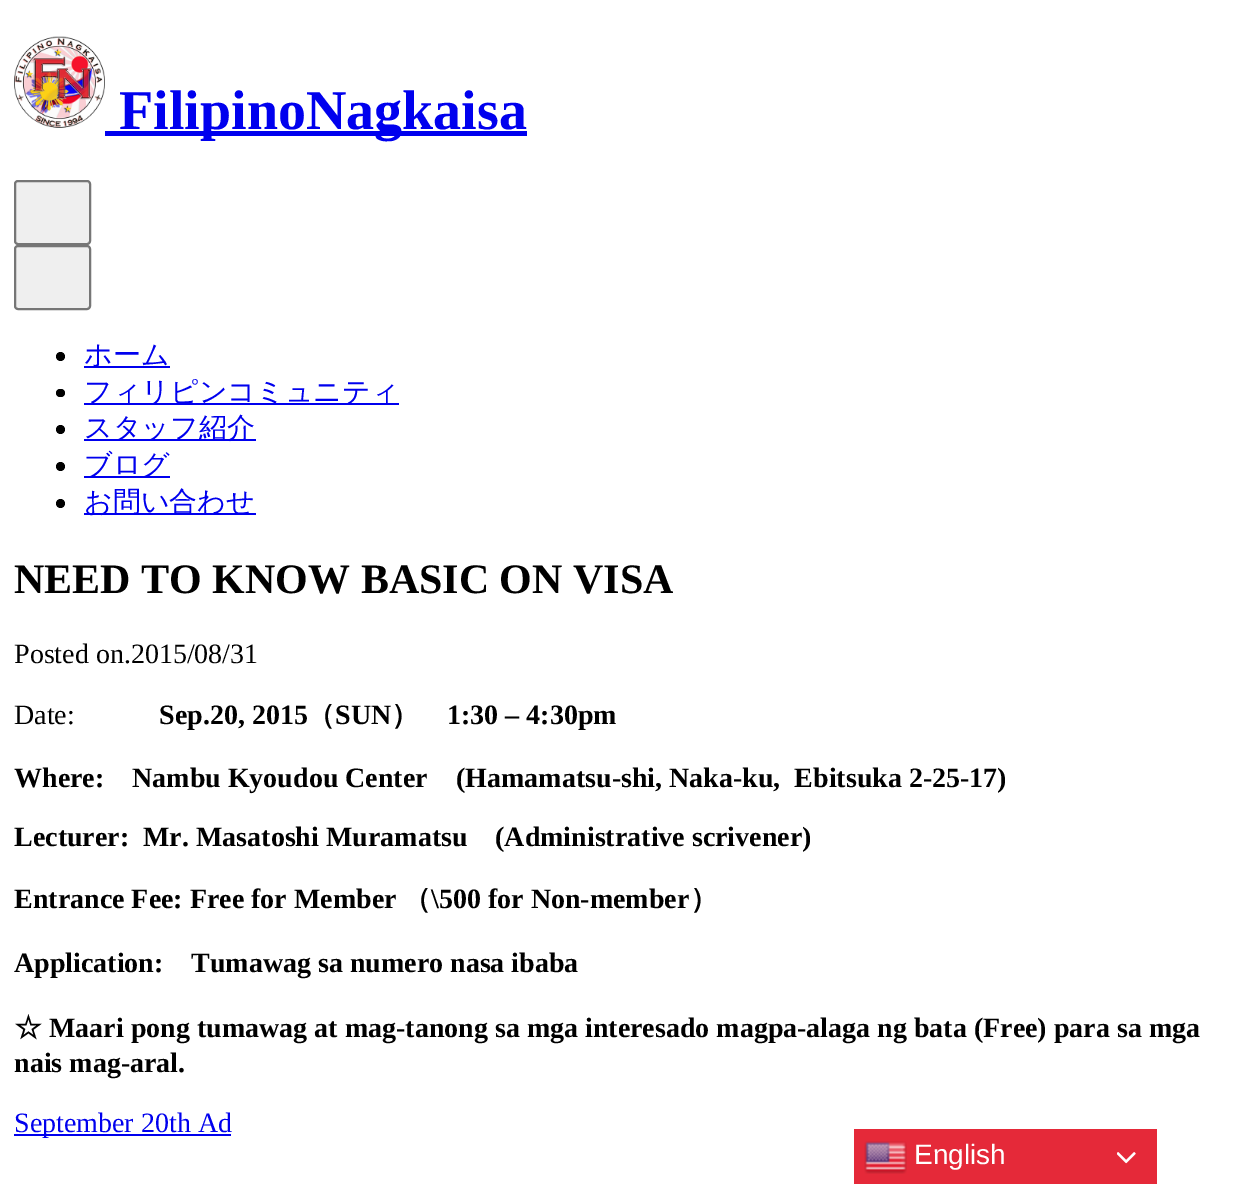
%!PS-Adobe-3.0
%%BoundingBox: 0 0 1255 1184
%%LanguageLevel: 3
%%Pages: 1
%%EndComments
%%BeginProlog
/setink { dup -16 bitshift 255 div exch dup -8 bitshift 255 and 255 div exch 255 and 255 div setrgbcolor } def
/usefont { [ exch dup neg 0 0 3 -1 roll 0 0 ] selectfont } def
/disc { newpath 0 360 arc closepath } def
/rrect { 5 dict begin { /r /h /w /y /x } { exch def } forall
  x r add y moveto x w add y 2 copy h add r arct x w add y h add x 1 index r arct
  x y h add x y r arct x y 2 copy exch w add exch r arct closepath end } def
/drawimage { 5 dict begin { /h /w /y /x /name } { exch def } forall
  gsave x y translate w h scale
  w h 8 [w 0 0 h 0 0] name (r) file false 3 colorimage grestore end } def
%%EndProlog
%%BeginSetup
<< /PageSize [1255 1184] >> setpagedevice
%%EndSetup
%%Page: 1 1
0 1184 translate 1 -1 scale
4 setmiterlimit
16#FFFFFF setink
0 0 1255 1184 rectfill
(img1.raw) 14 36 91 92 drawimage
16#0000EE setink
105 131 422 5 rectfill
/LiberationSerif-Bold 56 usefont
119 129 moveto (FilipinoNagkaisa) show
16#EFEFEF setink
15 181 75 63 3 rrect gsave fill grestore
16#767676 setink
2 setlinewidth
stroke
16#EFEFEF setink
15 246 75 63 3 rrect gsave fill grestore
16#767676 setink
stroke
16#000000 setink
60.5 356.5 4.5 disc fill
16#0000EE setink
84 366 86 2 rectfill
/WenQuanYiZenHei-Medium 28 usefont
84 364 moveto (ホーム) show
16#000000 setink
56 389 9 8 4 rrect fill
16#0000EE setink
84 403 315 2 rectfill
84 401 moveto (フィリピンコミュニティ) show
16#000000 setink
60.5 429.5 4.5 disc fill
16#0000EE setink
84 439 172 2 rectfill
84 437 moveto (スタッフ紹介) show
16#000000 setink
60.5 466.5 4.5 disc fill
16#0000EE setink
84 476 86 2 rectfill
84 474 moveto (ブログ) show
16#000000 setink
60.5 503.5 4.5 disc fill
16#0000EE setink
84 513 172 2 rectfill
84 511 moveto (お問い合わせ) show
/LiberationSerif-Bold 42 usefont
16#000000 setink
14 593 moveto (NEED TO KNOW BASIC ON VISA) show
/LiberationSerif-Regular 28 usefont
14 663 moveto (Posted on.2015/08/31) show
14 724 moveto (Date:) show
/LiberationSerif-Bold 28 usefont
159 724 moveto (Sep.20, 2015) show
/WenQuanYiZenHei-Bold 28 usefont
307 724 moveto (（) show
/LiberationSerif-Bold 28 usefont
335 724 moveto (SUN) show
/WenQuanYiZenHei-Bold 28 usefont
391 724 moveto (）) show
/LiberationSerif-Bold 28 usefont
[
    [(1:30 – 4:30pm) 447 724]
    [(Where:) 14 787]
    [(Nambu Kyoudou Center) 132 787]
    [(\(Hamamatsu-shi, Naka-ku,  Ebitsuka 2-25-17\)) 456 787]
    [(Lecturer:  Mr. Masatoshi Muramatsu) 14 846]
    [(\(Administrative scrivener\)) 495 846]
    [(Entrance Fee: Free for Member) 14 908]
] { aload pop moveto show } forall
/WenQuanYiZenHei-Bold 28 usefont
403 908 moveto (（) show
/LiberationSerif-Bold 28 usefont
431 908 moveto (\\500 for Non-member) show
/WenQuanYiZenHei-Bold 28 usefont
690 908 moveto (）) show
/LiberationSerif-Bold 28 usefont
14 972 moveto (Application:) show
191 972 moveto (Tumawag sa numero nasa ibaba) show
/WenQuanYiZenHei-Bold 28 usefont
14 1037 moveto (☆) show
/LiberationSerif-Bold 28 usefont
49 1037 moveto (Maari pong tumawag at mag-tanong sa mga interesado magpa-alaga ng bata \(Free\) para sa mga) show
14 1072 moveto (nais mag-aral.) show
16#0000EE setink
14 1134 217 2 rectfill
/LiberationSerif-Regular 28 usefont
14 1132 moveto (September 20th Ad) show
16#E52939 setink
854 1129 303 55 rectfill
(img2.raw) 864 1141 43 33 drawimage
/LiberationSans-Regular 28 usefont
16#FFFFFF setink
914 1164 moveto (English) show
(img3.raw) 1117 1152 19 12 drawimage
showpage
%%EOF
